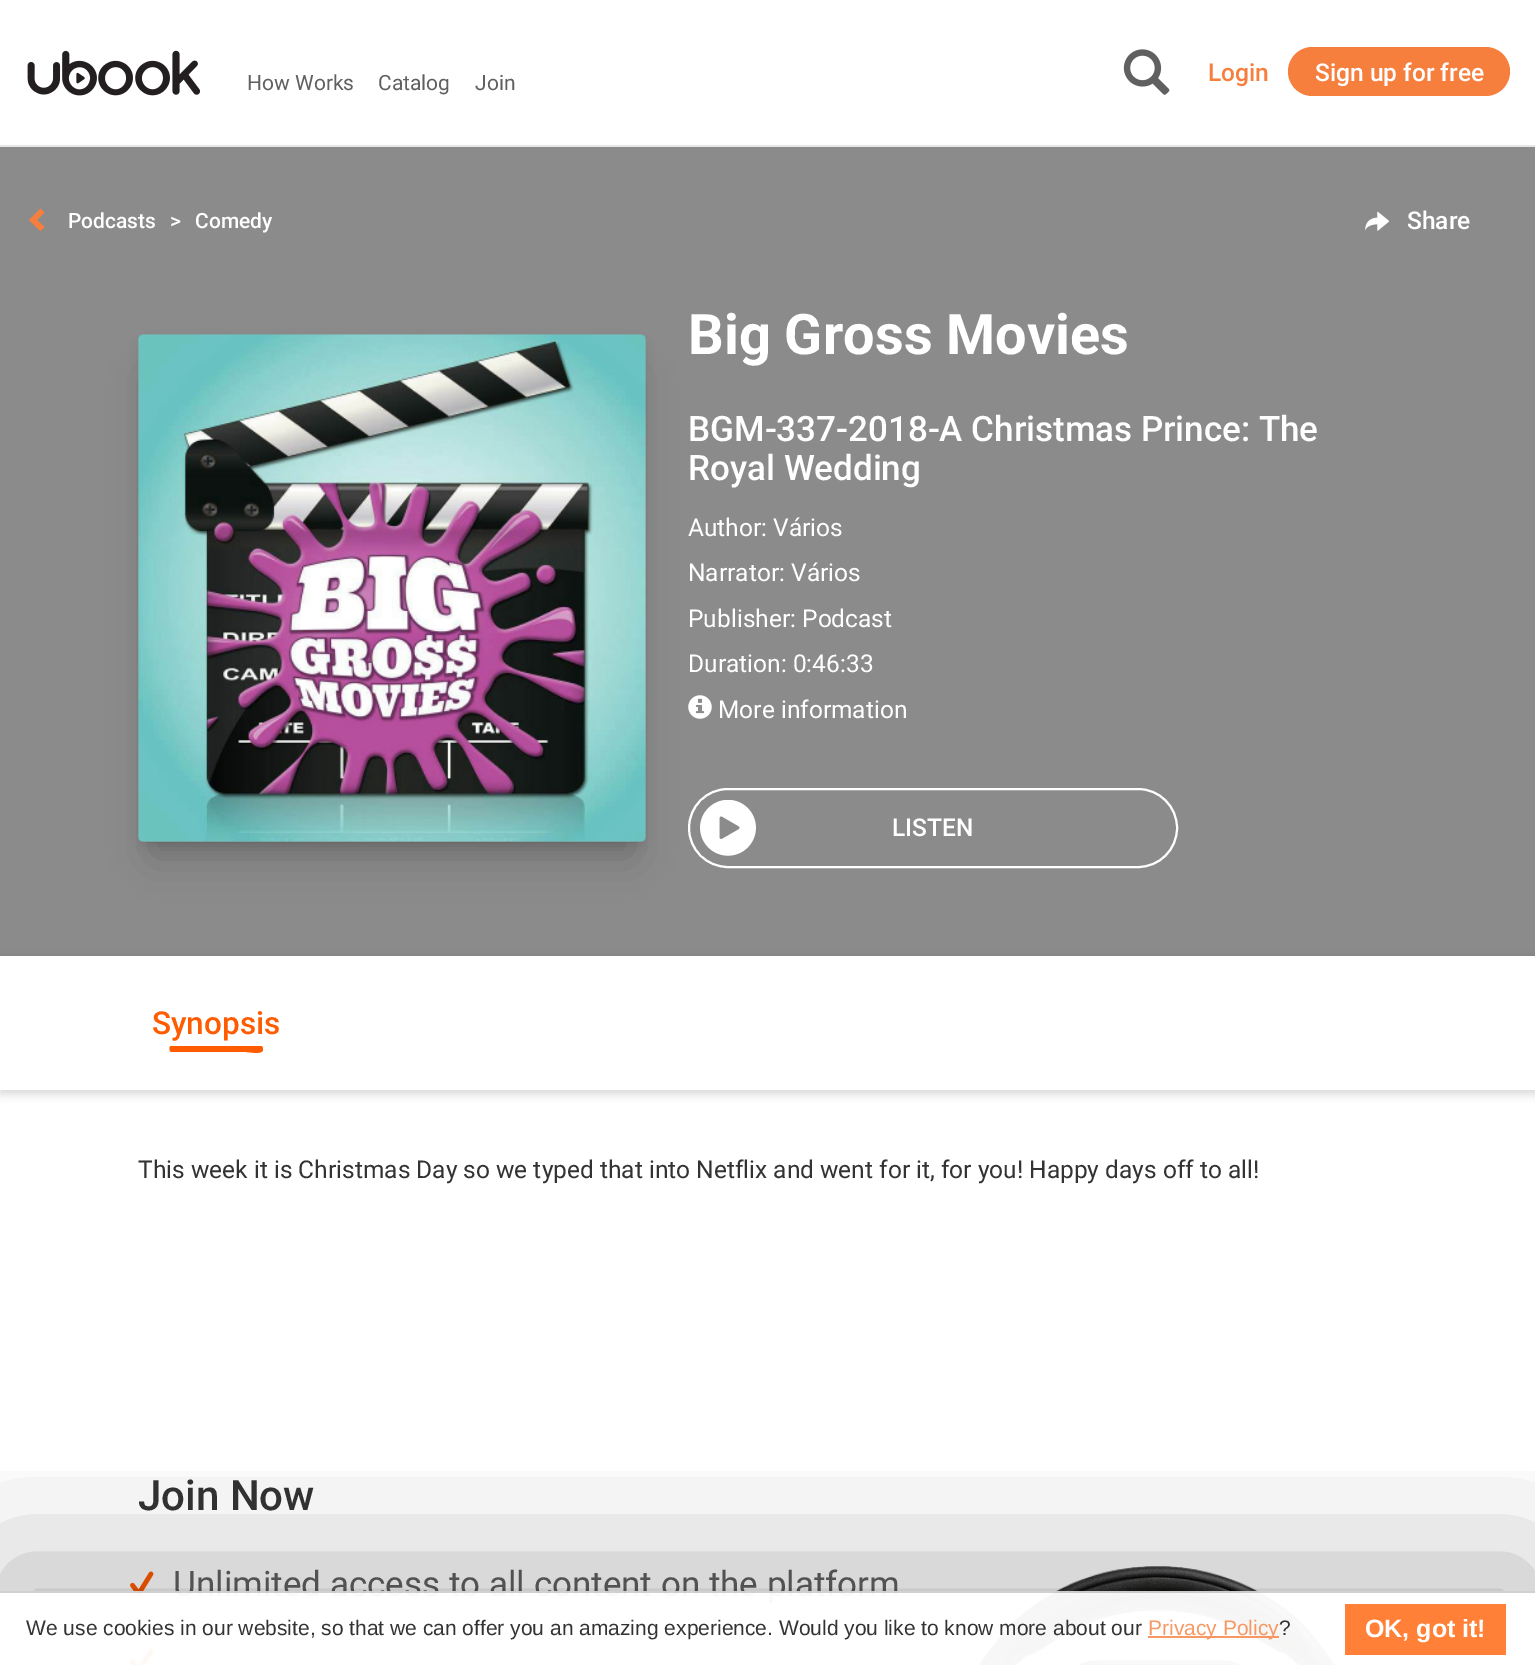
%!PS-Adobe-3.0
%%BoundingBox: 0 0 1535 1665
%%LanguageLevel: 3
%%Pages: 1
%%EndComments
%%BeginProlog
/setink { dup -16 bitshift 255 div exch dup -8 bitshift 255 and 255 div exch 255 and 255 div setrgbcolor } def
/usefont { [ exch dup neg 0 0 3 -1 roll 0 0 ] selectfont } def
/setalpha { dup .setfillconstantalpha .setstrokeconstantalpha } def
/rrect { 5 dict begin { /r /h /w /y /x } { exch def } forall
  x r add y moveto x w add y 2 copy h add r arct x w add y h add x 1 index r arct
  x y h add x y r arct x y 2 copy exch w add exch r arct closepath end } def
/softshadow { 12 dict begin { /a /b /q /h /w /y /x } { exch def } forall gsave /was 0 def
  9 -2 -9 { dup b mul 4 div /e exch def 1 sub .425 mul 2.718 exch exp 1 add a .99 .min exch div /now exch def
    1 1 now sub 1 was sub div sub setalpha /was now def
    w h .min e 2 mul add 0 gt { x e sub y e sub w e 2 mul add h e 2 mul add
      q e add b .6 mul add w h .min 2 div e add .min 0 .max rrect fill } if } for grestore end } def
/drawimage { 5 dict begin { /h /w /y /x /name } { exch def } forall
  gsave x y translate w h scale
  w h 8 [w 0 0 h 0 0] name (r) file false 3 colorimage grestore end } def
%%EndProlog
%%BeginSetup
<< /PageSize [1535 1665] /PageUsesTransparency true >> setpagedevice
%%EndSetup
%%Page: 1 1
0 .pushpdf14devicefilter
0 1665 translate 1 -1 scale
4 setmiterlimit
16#FFFFFF setink
0 0 1535 1665 rectfill
16#E7E7E7 setink
0 145 1535 2 rectfill
(img1.raw) 27 50 174 46 drawimage
/Roboto-Regular 21 usefont
16#606060 setink
[
    [(How Works) 247 90]
    [(Catalog) 378 90]
    [(Join) 475 90]
] { aload pop moveto show } forall
(img2.raw) 1123 49 47 46 drawimage
/Roboto-Medium 24.5 usefont
16#F67F3E setink
1208 81 moveto (Login) show
1288 47 222 49 24.5 rrect fill
16#FFFFFF setink
1315 81 moveto (Sign up for free) show
16#8B8B8B setink
0 147 1535 809 rectfill
16#F67F3E setink
44.5 212.5 moveto 37 220 lineto 44.5 227 lineto 40.5 231 lineto 29 220 lineto 40.5 208.5 lineto closepath fill
/Roboto-Medium 21 usefont
16#FFFFFF setink
[
    [(Podcasts) 68 228]
    [(>) 170 228]
    [(Comedy) 195 228]
] { aload pop moveto show } forall
(img3.raw) 1365 211 24 20 drawimage
/Roboto-Medium 24.5 usefont
1407 229 moveto (Share) show
16#000000 setink
145 348 494 494 0 7 0.2 softshadow
16#FFFFFF setink
2 setlinewidth
689 789 488 78 39 rrect stroke
16#000000 setink
152 376 480 480 0 21 0.2 softshadow
(img4.raw) 138 334 508 508 drawimage
/Roboto-Bold 56 usefont
16#FFFFFF setink
688 354 moveto (Big Gross Movies) show
/Roboto-Medium 35 usefont
688 441 moveto (BGM-337-2018-A Christmas Prince: The) show
688 480 moveto (Royal Wedding) show
/Roboto-Regular 24.5 usefont
[
    [(Author: Vários) 688 536]
    [(Narrator: Vários) 688 581]
    [(Publisher: Podcast) 688 627]
    [(Duration: 0:46:33) 688 672]
] { aload pop moveto show } forall
(img5.raw) 688 695 24 24 drawimage
718 718 moveto (More information) show
(img6.raw) 700 800 56 56 drawimage
/Roboto-Medium 24.5 usefont
892 836 moveto (LISTEN) show
gsave
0 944 moveto 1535 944 lineto 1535 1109 lineto 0 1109 lineto closepath 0 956 moveto 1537 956 lineto 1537 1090 lineto 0 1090 lineto closepath eoclip newpath
16#000000 setink
0 959 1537 135 0 4.5 0.15 softshadow
grestore
/Roboto-Medium 31.5 usefont
16#FF5B00 setink
152 1034 moveto (Synopsis) show
171 1046 moveto 261 1046 lineto 263 1046 263 1049 263 1050 curveto 262 1055 249 1052 246 1052 curveto 171 1052 lineto 169 1051 169 1046 171 1046 curveto closepath fill
/Roboto-Regular 24.5 usefont
16#333333 setink
138 1178 moveto (This week it is Christmas Day so we typed that into Netflix and went for it, for you! Happy days off to all!) show
/Roboto-Medium 42 usefont
138 1510 moveto (Join Now) show
(img7.raw) 130 1571 24 25 drawimage
/Roboto-Regular 35 usefont
16#606060 setink
173 1596 moveto (Unlimited access to all content on the platform) show
(img8.raw) 130 1648 24 17 drawimage
(img9.raw) 979 1566 357 99 drawimage
gsave
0 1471 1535 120 rectclip
16#000000 setink
14 1570 1509 47 0 74.5 0.3 softshadow
grestore
0.96 setalpha
16#FFFFFF setink
130 1591 1206 74 rectfill
0.18 setalpha
16#000000 setink
0 1591 1535 2 rectfill
/LiberationSans-Regular 21 usefont
1 setalpha
16#333333 setink
26 1635 moveto (We use cookies in our website, so that we can offer you an amazing experience. Would you like to know more about our) show
0.8 setalpha
16#F67F3E setink
1148 1636 131 2 rectfill
1 setalpha
16#F79863 setink
1148 1635 moveto (Privacy Policy) show
16#333333 setink
1279 1635 moveto (?) show
16#FF8036 setink
1345 1604 161 51 rectfill
/LiberationSans-Bold 25 usefont
16#FFFFFF setink
1365 1637 moveto (OK, got it!) show
.poppdf14devicefilter showpage
%%EOF
